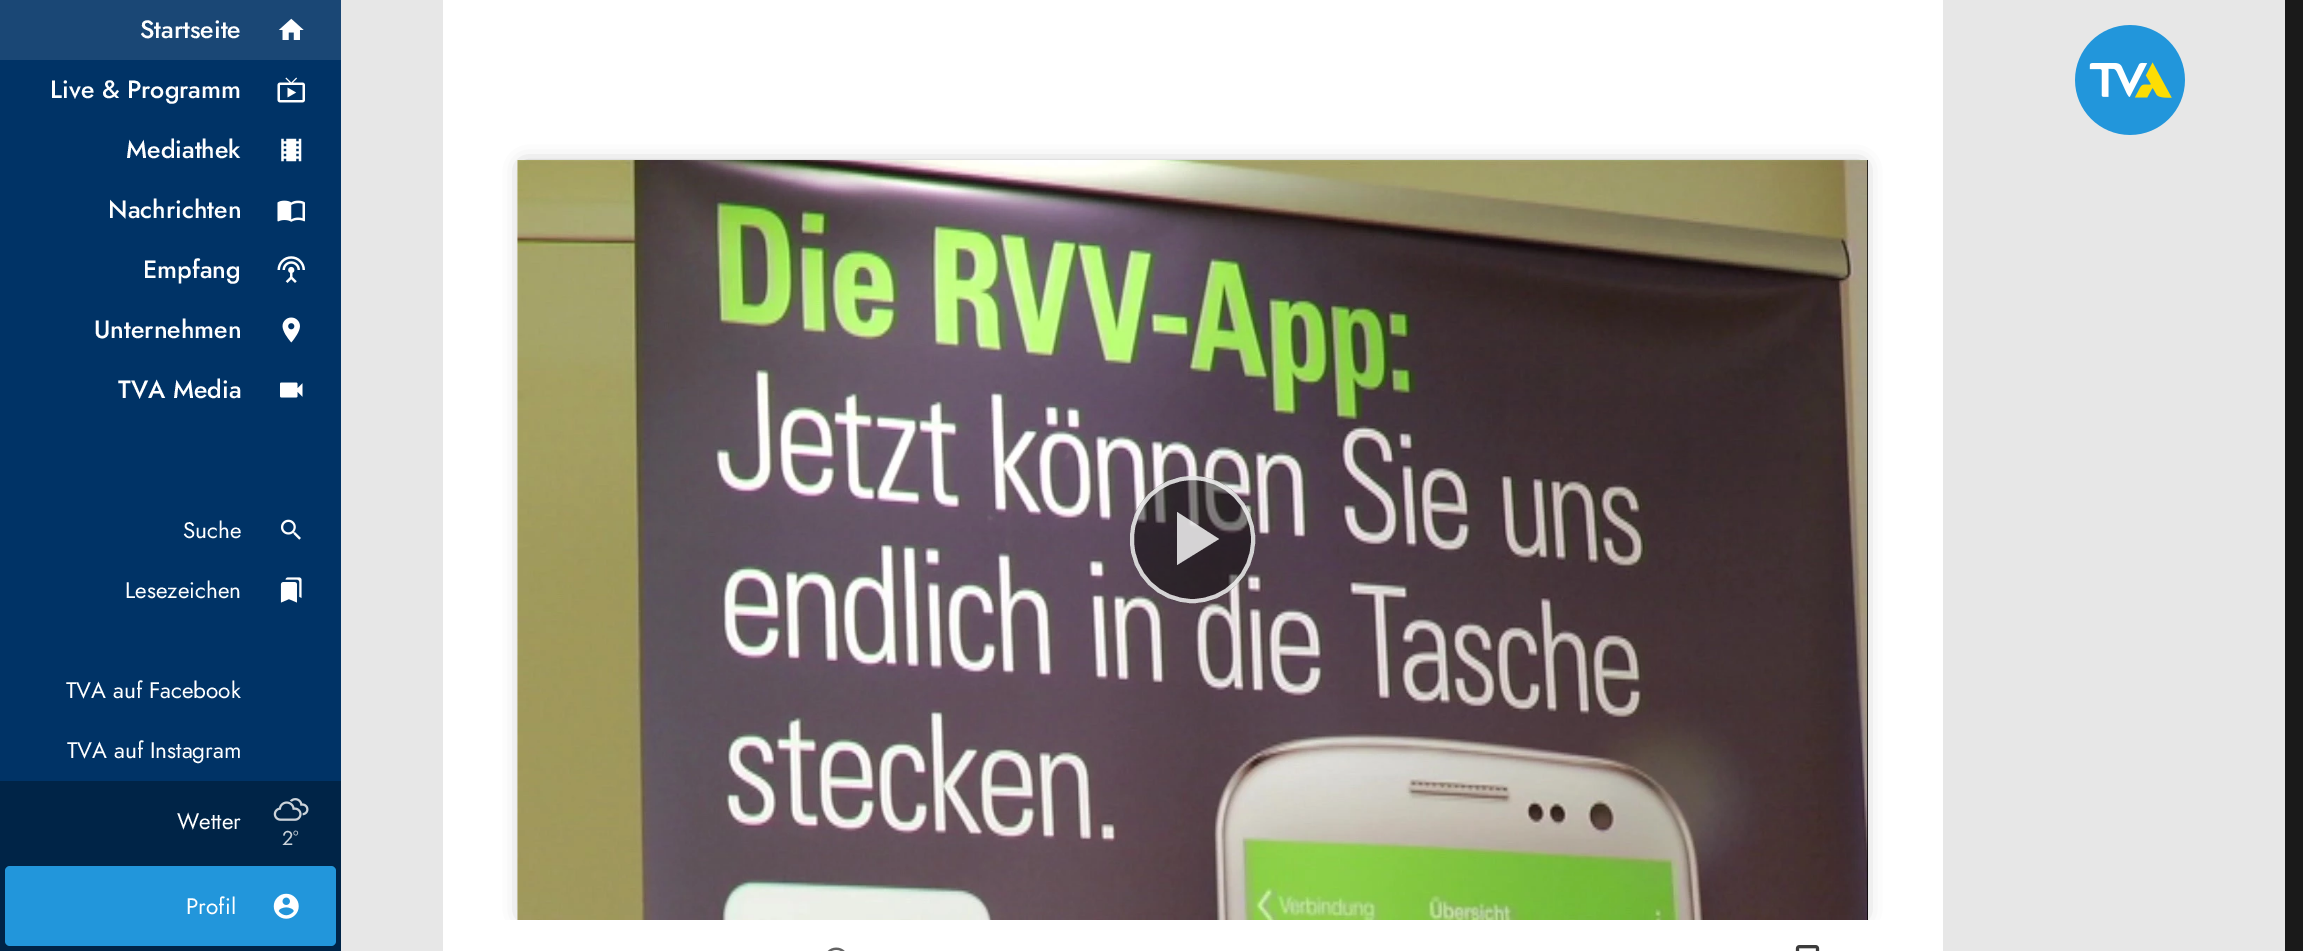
%!PS-Adobe-3.0
%%BoundingBox: 0 0 2303 951
%%LanguageLevel: 3
%%Pages: 1
%%EndComments
%%BeginProlog
/setink { dup -16 bitshift 255 div exch dup -8 bitshift 255 and 255 div exch 255 and 255 div setrgbcolor } def
/usefont { [ exch dup neg 0 0 3 -1 roll 0 0 ] selectfont } def
/setalpha { dup .setfillconstantalpha .setstrokeconstantalpha } def
/disc { newpath 0 360 arc closepath } def
/rrect { 5 dict begin { /r /h /w /y /x } { exch def } forall
  x r add y moveto x w add y 2 copy h add r arct x w add y h add x 1 index r arct
  x y h add x y r arct x y 2 copy exch w add exch r arct closepath end } def
/softshadow { 12 dict begin { /a /b /q /h /w /y /x } { exch def } forall gsave /was 0 def
  9 -2 -9 { dup b mul 4 div /e exch def 1 sub .425 mul 2.718 exch exp 1 add a .99 .min exch div /now exch def
    1 1 now sub 1 was sub div sub setalpha /was now def
    w h .min e 2 mul add 0 gt { x e sub y e sub w e 2 mul add h e 2 mul add
      q e add b .6 mul add w h .min 2 div e add .min 0 .max rrect fill } if } for grestore end } def
/drawimage { 5 dict begin { /h /w /y /x /name } { exch def } forall
  gsave x y translate w h scale
  w h 8 [w 0 0 h 0 0] name (r) file false 3 colorimage grestore end } def
%%EndProlog
%%BeginSetup
<< /PageSize [2303 951] /PageUsesTransparency true >> setpagedevice
%%EndSetup
%%Page: 1 1
0 .pushpdf14devicefilter
0 951 translate 1 -1 scale
4 setmiterlimit
16#1A1A1A setink
0 0 2303 951 rectfill
[
    [0 60 341 721 16#003366]
    [341 0 1944 951 16#E7E7E7]
    [443 0 1500 951 16#FFFFFF]
] { aload pop setink rectfill } forall
gsave
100 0 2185 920 rectclip
16#000000 setink
524 166 1337 748 0 9.5 0.4 softshadow
grestore
(img14.raw) 517 160 1 760 drawimage
(img15.raw) 517 160 1 760 drawimage
16#000000 setink
1867 160 1 760 rectfill
(img16.raw) 517 160 1351 760 drawimage
gsave
0 0 341 60 rectclip
16#1A4775 setink
291 30 420 disc fill
grestore
/Jost-Medium 25 usefont
16#FFFFFF setink
140 38 moveto (Startseite) show
(img1.raw) 278 18 26 22 drawimage
50 98 moveto (Live & Programm) show
(img2.raw) 277 77 28 26 drawimage
126 158 moveto (Mediathek) show
(img3.raw) 281 138 21 24 drawimage
108 218 moveto (Nachrichten) show
(img4.raw) 277 200 28 22 drawimage
143 278 moveto (Empfang) show
(img5.raw) 277 256 28 27 drawimage
94 338 moveto (Unternehmen) show
(img6.raw) 282 317 18 26 drawimage
118 398 moveto (TVA Media) show
(img7.raw) 280 382 23 16 drawimage
/Jost-Regular 22.5 usefont
183 538 moveto (Suche) show
(img8.raw) 280 519 21 21 drawimage
125 598 moveto (Lesezeichen) show
(img9.raw) 280 577 22 26 drawimage
66 698 moveto (TVA auf Facebook) show
67 758 moveto (TVA auf Instagram) show
16#002447 setink
0 781 341 170 rectfill
16#FFFFFF setink
177 829 moveto (Wetter) show
(img10.raw) 273 798 36 23 drawimage
/Jost-Regular 20 usefont
16#CCD3DA setink
282 845 moveto (2°) show
16#2296DB setink
5 866 331 80 5 rrect fill
/Jost-Regular 22.5 usefont
16#FFFFFF setink
186 914 moveto (Profil) show
(img11.raw) 273 893 26 26 drawimage
(img12.raw) 827 947 18 4 drawimage
(img13.raw) 1795 945 25 6 drawimage
0.48 setalpha
16#000000 setink
1130 476 125 127 62.5 rrect fill
0.8 setalpha
16#FFFFFF setink
4 setlinewidth
1132 478 121 123 60.5 rrect stroke
1177 512 moveto 1177 565 lineto 1219 539 lineto closepath fill
1 setalpha
(img17.raw) 2075 25 110 110 drawimage
.poppdf14devicefilter showpage
%%EOF
